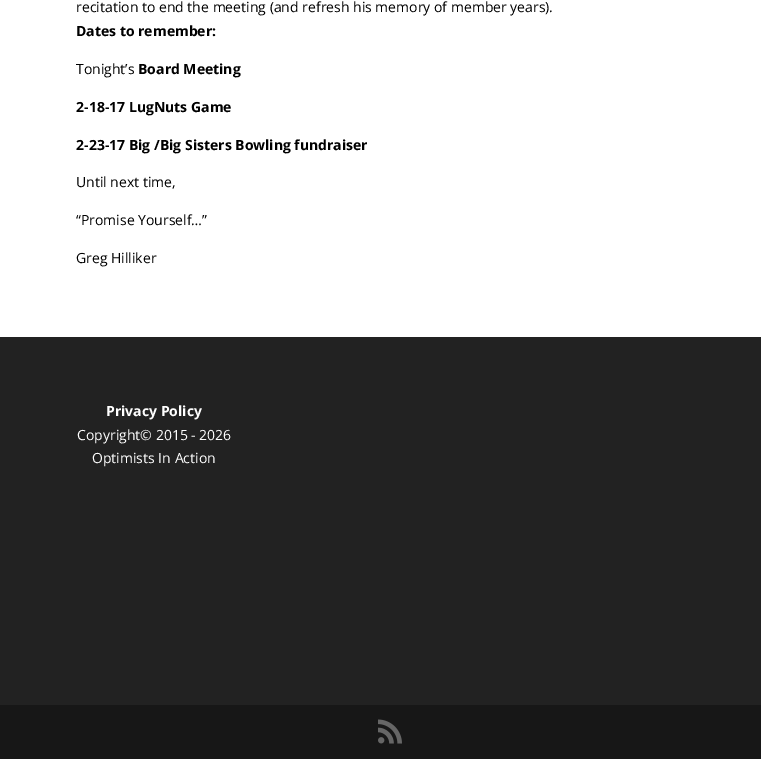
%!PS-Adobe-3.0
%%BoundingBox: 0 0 761 759
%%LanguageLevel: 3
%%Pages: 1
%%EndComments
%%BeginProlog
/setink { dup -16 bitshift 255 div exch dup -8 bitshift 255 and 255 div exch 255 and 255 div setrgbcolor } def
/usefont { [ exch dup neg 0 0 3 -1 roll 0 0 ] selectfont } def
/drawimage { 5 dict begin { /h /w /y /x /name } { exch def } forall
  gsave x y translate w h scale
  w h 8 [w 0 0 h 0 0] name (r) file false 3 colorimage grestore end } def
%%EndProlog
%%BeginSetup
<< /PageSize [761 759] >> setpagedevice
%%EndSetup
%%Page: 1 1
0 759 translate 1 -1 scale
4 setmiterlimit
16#FFFFFF setink
0 0 761 759 rectfill
/OpenSans-Regular 14 usefont
16#000000 setink
76 12 moveto (recitation to end the meeting \(and refresh his memory of member years\).) show
/OpenSans-Bold 14 usefont
76 36 moveto (Dates to remember:) show
/OpenSans-Regular 14 usefont
76 74 moveto (Tonight’s) show
/OpenSans-Bold 14 usefont
[
    [(Board Meeting) 138 74]
    [(2-18-17 LugNuts Game) 76 112]
    [(2-23-17 Big /Big Sisters Bowling fundraiser) 76 150]
] { aload pop moveto show } forall
/OpenSans-Regular 14 usefont
[
    [(Until next time,) 76 187]
    [(“Promise Yourself…”) 76 225]
    [(Greg Hilliker) 76 263]
] { aload pop moveto show } forall
16#222222 setink
0 337 761 368 rectfill
/OpenSans-Bold 14 usefont
16#FFFFFF setink
106 416 moveto (Privacy Policy) show
/OpenSans-Regular 14 usefont
77 440 moveto (Copyright© 2015 - 2026) show
92 463 moveto (Optimists In Action) show
16#171717 setink
0 705 761 54 rectfill
(img1.raw) 378 719 24 25 drawimage
showpage
%%EOF
